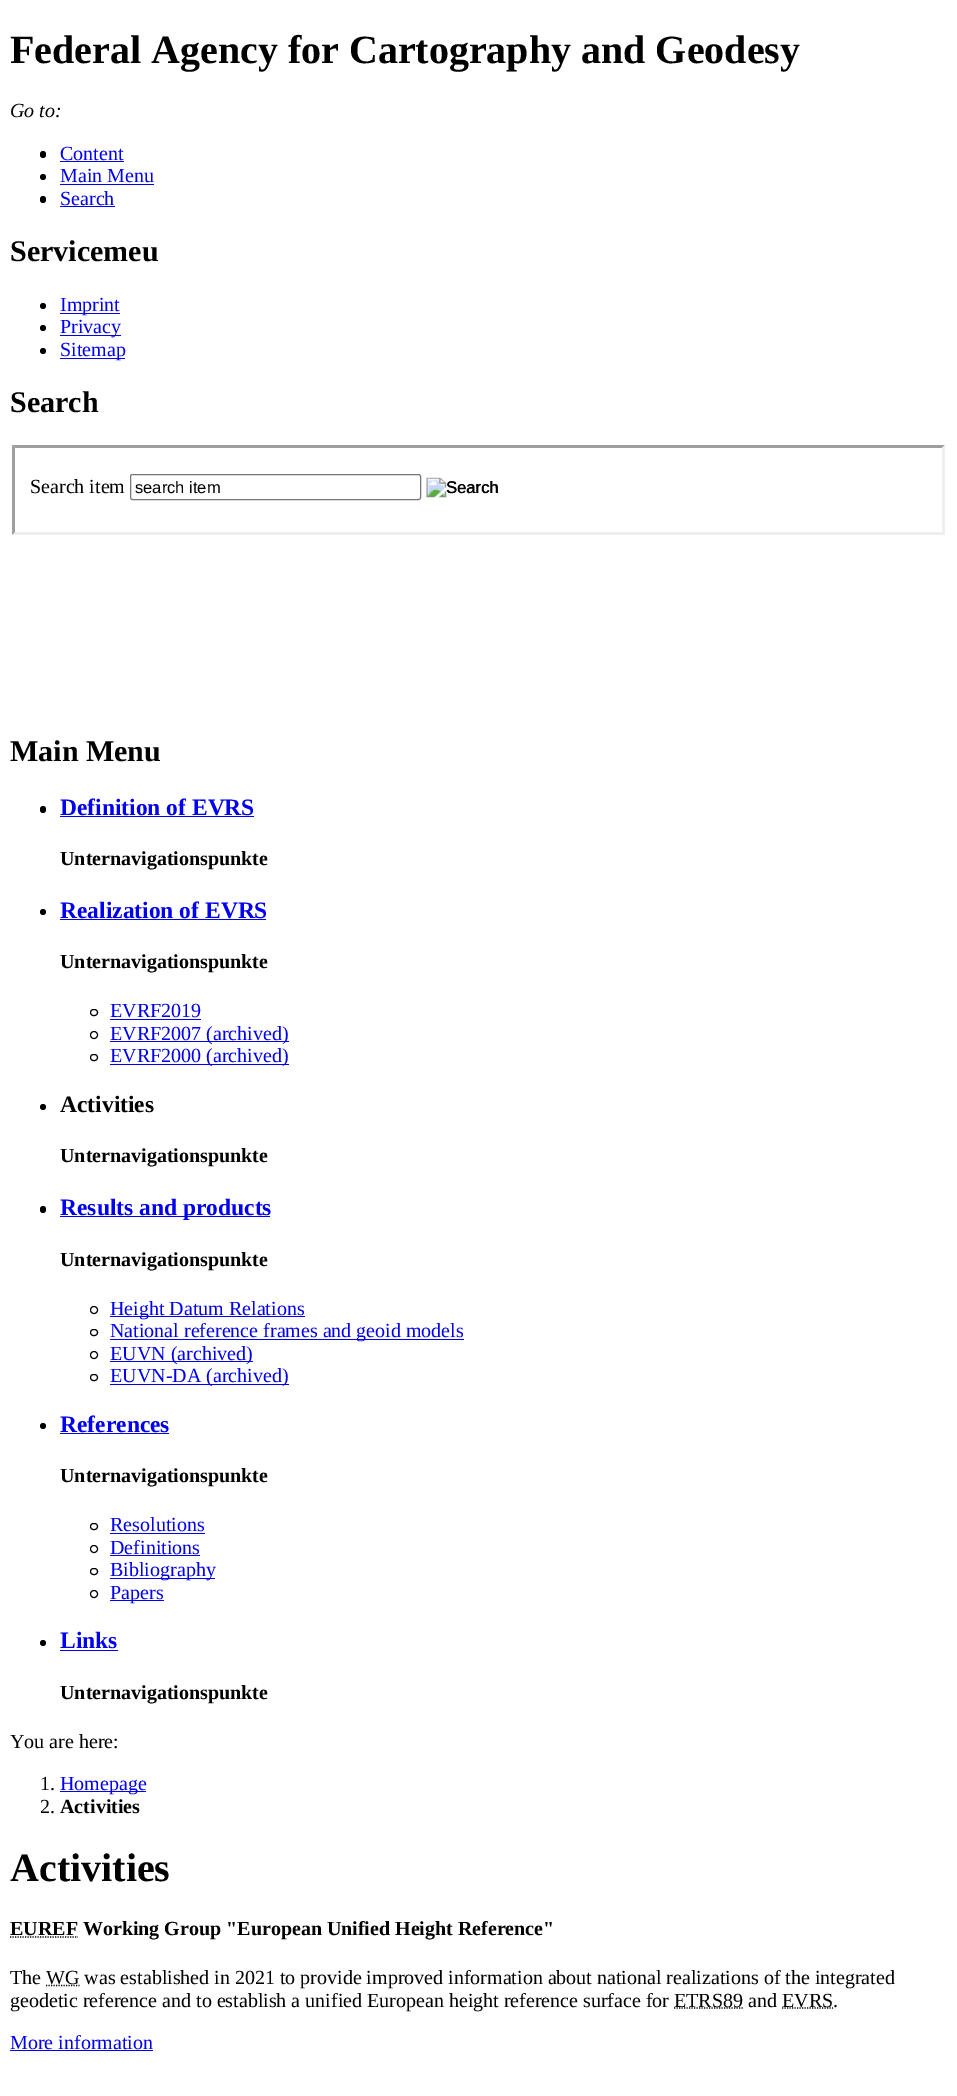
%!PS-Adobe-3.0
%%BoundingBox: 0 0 957 2096
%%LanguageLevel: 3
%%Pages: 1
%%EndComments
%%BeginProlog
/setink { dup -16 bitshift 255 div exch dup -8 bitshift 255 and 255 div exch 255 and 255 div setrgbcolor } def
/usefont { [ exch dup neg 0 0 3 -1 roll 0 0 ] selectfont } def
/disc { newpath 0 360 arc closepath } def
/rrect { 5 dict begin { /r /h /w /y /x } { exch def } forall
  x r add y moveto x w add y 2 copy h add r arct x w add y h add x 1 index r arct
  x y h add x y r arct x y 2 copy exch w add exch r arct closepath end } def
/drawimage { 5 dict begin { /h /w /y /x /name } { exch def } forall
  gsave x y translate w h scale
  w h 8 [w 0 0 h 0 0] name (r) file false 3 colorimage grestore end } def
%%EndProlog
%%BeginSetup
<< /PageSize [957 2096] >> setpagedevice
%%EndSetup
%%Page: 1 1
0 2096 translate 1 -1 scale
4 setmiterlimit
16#FFFFFF setink
0 0 957 2096 rectfill
/LiberationSerif-Bold 40 usefont
16#000000 setink
10 63 moveto (Federal Agency for Cartography and Geodesy) show
/LiberationSerif-Italic 20 usefont
10 117 moveto (Go to:) show
40 151 6 7 3 rrect fill
/LiberationSerif-Regular 20 usefont
16#0000EE setink
60 160 moveto (Content) show
60 161 64 1 rectfill
16#000000 setink
43 177 3 disc fill
16#0000EE setink
60 182 moveto (Main Menu) show
60 184 94 1 rectfill
16#000000 setink
40 196 6 7 3 rrect fill
16#0000EE setink
60 205 moveto (Search) show
60 206 55 1 rectfill
/LiberationSerif-Bold 30 usefont
16#000000 setink
10 261 moveto (Servicemeu) show
43 306 3 disc fill
16#0000EE setink
60 313 60 1 rectfill
/LiberationSerif-Regular 20 usefont
60 311 moveto (Imprint) show
16#000000 setink
43 328 3 disc fill
16#0000EE setink
60 335 61 1 rectfill
60 333 moveto (Privacy) show
16#000000 setink
43 351 3 disc fill
16#0000EE setink
60 358 65 1 rectfill
60 356 moveto (Sitemap) show
/LiberationSerif-Bold 30 usefont
16#000000 setink
10 412 moveto (Search) show
16#9F9F9F setink
12 445 moveto 945 445 lineto 942 448 lineto 15 448 lineto closepath fill
16#EFEFEF setink
945 445 moveto 945 535 lineto 942 532 lineto 942 448 lineto closepath fill
945 535 moveto 12 535 lineto 15 532 lineto 942 532 lineto closepath fill
16#9F9F9F setink
12 535 moveto 12 445 lineto 15 448 lineto 15 532 lineto closepath fill
/LiberationSerif-Regular 20 usefont
16#000000 setink
30 493 moveto (Search item) show
16#767676 setink
130.5 474.5 290 25 2 rrect stroke
/LiberationSans-Regular 16.5 usefont
16#000000 setink
135 493 moveto (search item) show
(img1.raw) 426 477 72 21 drawimage
446 493 moveto (Search) show
/LiberationSerif-Bold 30 usefont
10 761 moveto (Main Menu) show
40 806 6 7 3 rrect fill
/LiberationSerif-Bold 23.5 usefont
16#0000EE setink
60 815 moveto (Definition of EVRS) show
60 816 194 1 rectfill
/LiberationSerif-Bold 20 usefont
16#000000 setink
60 865 moveto (Unternavigationspunkte) show
43 912 3 disc fill
/LiberationSerif-Bold 23.5 usefont
16#0000EE setink
60 918 moveto (Realization of EVRS) show
60 919 206 1 rectfill
/LiberationSerif-Bold 20 usefont
16#000000 setink
60 968 moveto (Unternavigationspunkte) show
90.5 1009.5 7 6 3 rrect stroke
/LiberationSerif-Regular 20 usefont
16#0000EE setink
110 1017 moveto (EVRF2019) show
110 1019 91 1 rectfill
16#000000 setink
94 1035 3.5 disc stroke
16#0000EE setink
110 1041 179 1 rectfill
110 1040 moveto (EVRF2007 \(archived\)) show
16#000000 setink
90.5 1054.5 7 6 3 rrect stroke
16#0000EE setink
110 1064 179 1 rectfill
110 1062 moveto (EVRF2000 \(archived\)) show
16#000000 setink
43 1107 3 disc fill
/LiberationSerif-Bold 23.5 usefont
60 1112 moveto (Activities) show
/LiberationSerif-Bold 20 usefont
60 1162 moveto (Unternavigationspunkte) show
40 1206 6 7 3 rrect fill
16#0000EE setink
60 1216 210 1 rectfill
/LiberationSerif-Bold 23.5 usefont
60 1215 moveto (Results and products) show
/LiberationSerif-Bold 20 usefont
16#000000 setink
60 1266 moveto (Unternavigationspunkte) show
94 1310 3.5 disc stroke
16#0000EE setink
110 1316 195 1 rectfill
/LiberationSerif-Regular 20 usefont
110 1315 moveto (Height Datum Relations) show
16#000000 setink
90.5 1329.5 7 6 3 rrect stroke
16#0000EE setink
110 1339 354 1 rectfill
110 1337 moveto (National reference frames and geoid models) show
16#000000 setink
94 1355 3.5 disc stroke
16#0000EE setink
110 1361 143 1 rectfill
110 1360 moveto (EUVN \(archived\)) show
16#000000 setink
90.5 1374.5 7 6 3 rrect stroke
16#0000EE setink
110 1384 179 1 rectfill
110 1382 moveto (EUVN-DA \(archived\)) show
16#000000 setink
43 1426 3 disc fill
/LiberationSerif-Bold 23.5 usefont
16#0000EE setink
60 1432 moveto (References) show
60 1433 109 1 rectfill
/LiberationSerif-Bold 20 usefont
16#000000 setink
60 1482 moveto (Unternavigationspunkte) show
90.5 1523.5 7 6 3 rrect stroke
/LiberationSerif-Regular 20 usefont
16#0000EE setink
110 1531 moveto (Resolutions) show
110 1533 95 1 rectfill
16#000000 setink
94 1549 3.5 disc stroke
16#0000EE setink
110 1554 moveto (Definitions) show
110 1555 90 1 rectfill
16#000000 setink
90.5 1568.5 7 6 3 rrect stroke
16#0000EE setink
110 1578 105 1 rectfill
110 1576 moveto (Bibliography) show
16#000000 setink
94 1594 3.5 disc stroke
16#0000EE setink
110 1600 54 1 rectfill
110 1599 moveto (Papers) show
16#000000 setink
43 1643 3 disc fill
/LiberationSerif-Bold 23.5 usefont
16#0000EE setink
60 1648 moveto (Links) show
60 1650 58 1 rectfill
/LiberationSerif-Bold 20 usefont
16#000000 setink
60 1699 moveto (Unternavigationspunkte) show
/LiberationSerif-Regular 20 usefont
10 1748 moveto (You are here:) show
40 1790 moveto (1.) show
16#0000EE setink
60 1791 86 1 rectfill
60 1790 moveto (Homepage) show
16#000000 setink
40 1813 moveto (2.) show
/LiberationSerif-Bold 20 usefont
60 1813 moveto (Activities) show
/LiberationSerif-Bold 40 usefont
10 1881 moveto (Activities) show
1.2 setlinewidth
[1.25 1.25] 0 setdash
10 1937 moveto 78 1937 lineto stroke
/LiberationSerif-Bold 20 usefont
10 1935 moveto (EUREF Working Group "European Unified Height Reference") show
/LiberationSerif-Regular 20 usefont
10 1984 moveto (The) show
46 1985.5 moveto 79.5 1985.5 lineto stroke
46 1984 moveto (WG was established in 2021 to provide improved information about national realizations of the integrated) show
10 2007 moveto (geodetic reference and to establish a unified European height reference surface for) show
674 2008 moveto 743 2008 lineto stroke
674 2007 moveto (ETRS89 and) show
782 2008 moveto 833 2008 lineto stroke
782 2007 moveto (EVRS.) show
16#0000EE setink
10 2049 moveto (More information) show
10 2050 143 1 rectfill
showpage
%%EOF
